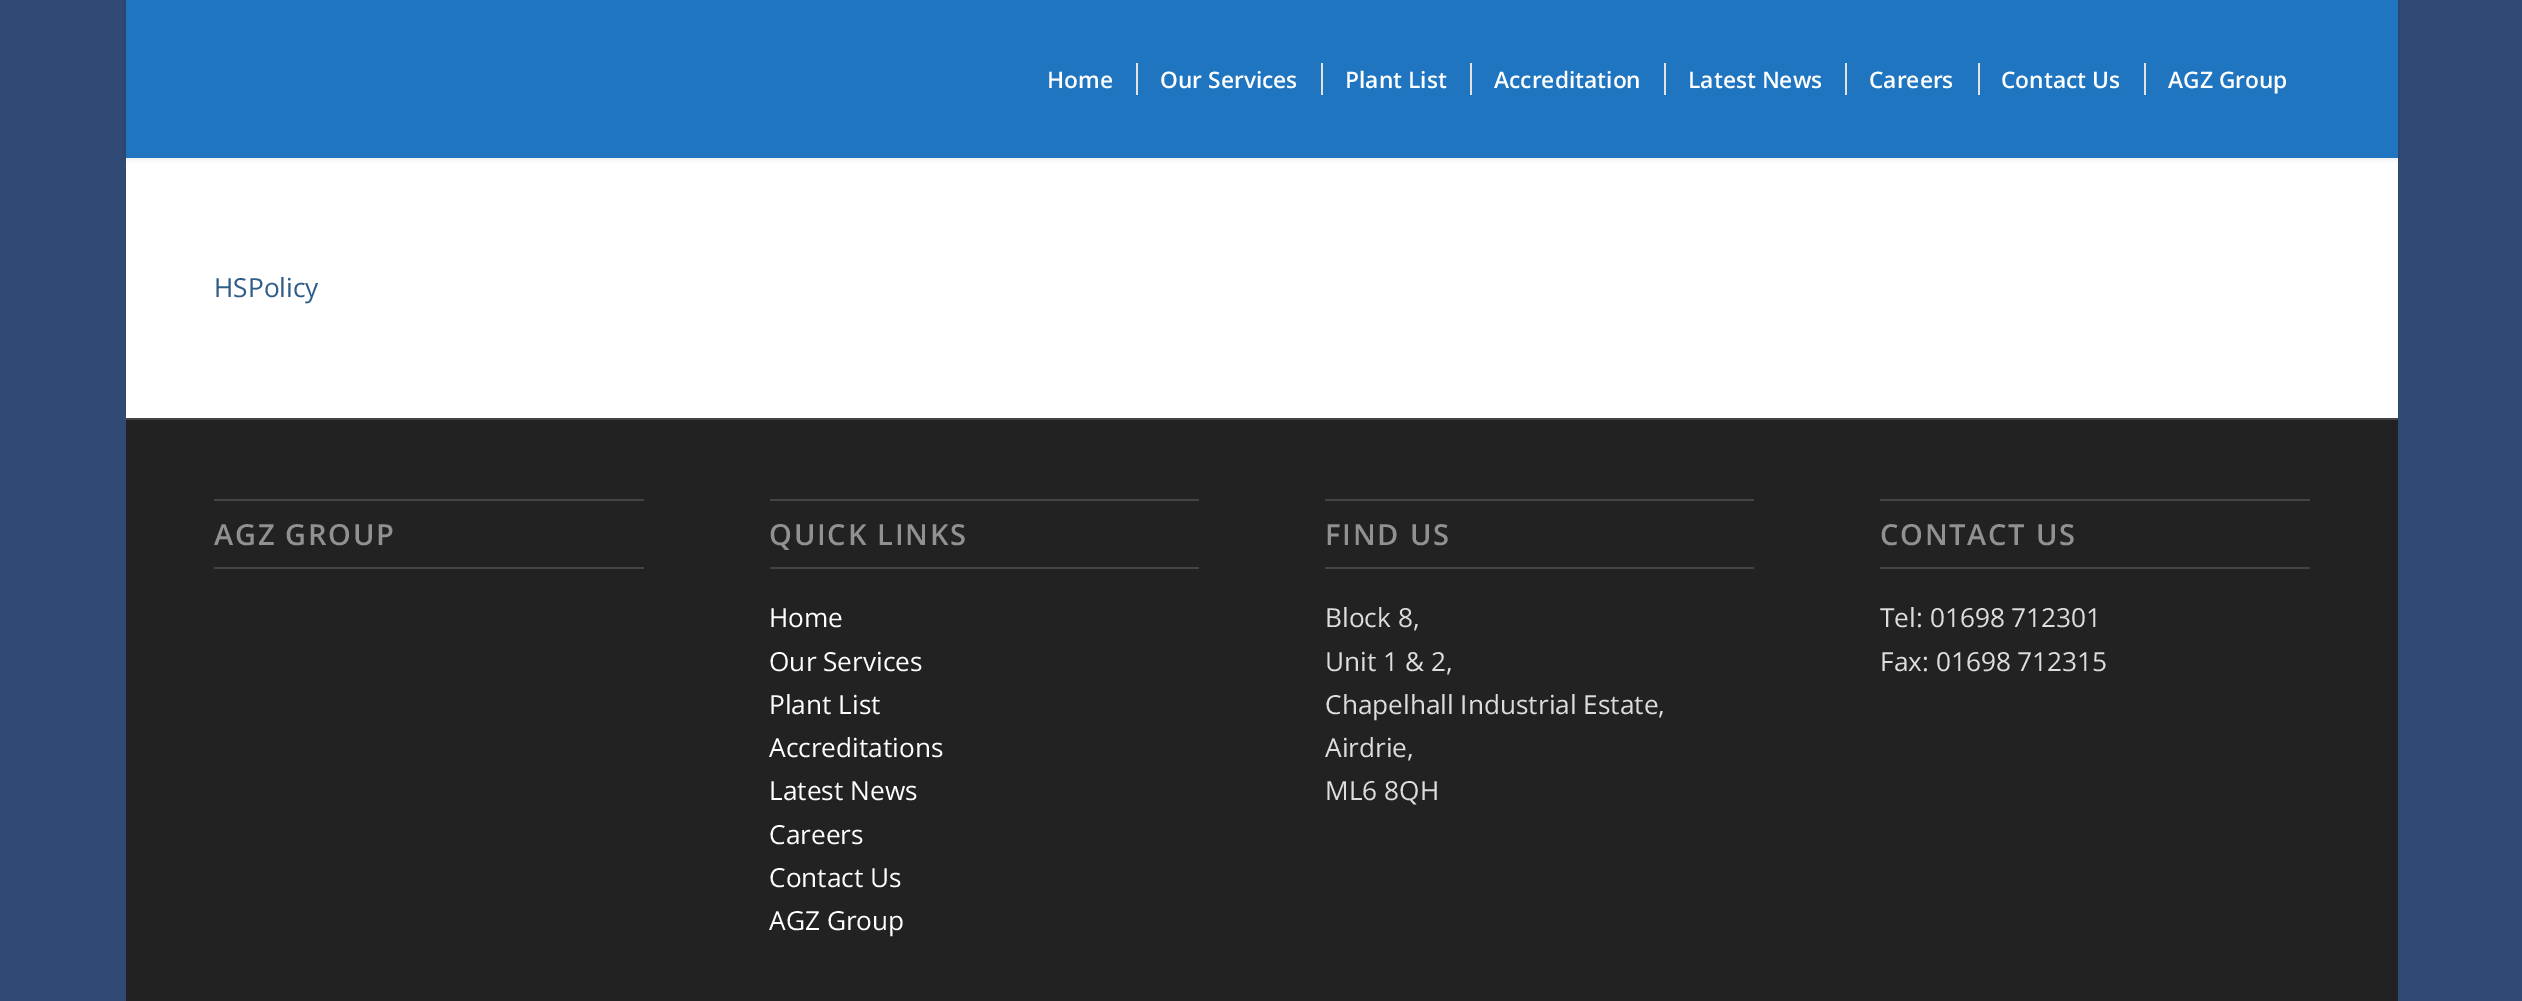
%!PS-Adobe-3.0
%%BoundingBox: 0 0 2522 1001
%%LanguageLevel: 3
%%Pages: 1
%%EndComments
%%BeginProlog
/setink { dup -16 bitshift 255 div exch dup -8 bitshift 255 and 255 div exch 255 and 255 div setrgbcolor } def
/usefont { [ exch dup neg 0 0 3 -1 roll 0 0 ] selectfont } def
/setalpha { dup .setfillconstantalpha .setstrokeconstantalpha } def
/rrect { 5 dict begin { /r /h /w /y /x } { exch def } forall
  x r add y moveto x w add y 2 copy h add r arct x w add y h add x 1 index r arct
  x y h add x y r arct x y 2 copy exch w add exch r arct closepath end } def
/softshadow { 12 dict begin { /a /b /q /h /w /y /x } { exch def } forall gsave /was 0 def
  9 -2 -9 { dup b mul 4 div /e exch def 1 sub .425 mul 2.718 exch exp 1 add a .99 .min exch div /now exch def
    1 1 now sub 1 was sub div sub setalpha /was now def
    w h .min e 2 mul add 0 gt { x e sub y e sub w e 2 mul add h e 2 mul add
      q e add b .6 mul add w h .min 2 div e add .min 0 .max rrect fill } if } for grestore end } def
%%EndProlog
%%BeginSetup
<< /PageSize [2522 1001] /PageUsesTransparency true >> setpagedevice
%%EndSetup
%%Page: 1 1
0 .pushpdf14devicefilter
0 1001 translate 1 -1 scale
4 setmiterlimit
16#314A75 setink
0 0 2522 1001 rectfill
16#FFFFFF setink
126 158 2272 260 rectfill
16#000000 setink
124 -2 2275 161 0 2 0.1 softshadow
16#1F75C0 setink
126 0 2272 158 rectfill
/OpenSans-SemiBold 22.75 usefont
16#FFFFFF setink
1047 88 moveto (Home) show
1160 88 moveto (Our Services) show
16#E1E1E1 setink
1136 63 2 32 rectfill
16#FFFFFF setink
1345 88 moveto (Plant List) show
16#E1E1E1 setink
1321 63 2 32 rectfill
16#FFFFFF setink
1494 88 moveto (Accreditation) show
16#E1E1E1 setink
1470 63 2 32 rectfill
16#FFFFFF setink
1688 88 moveto (Latest News) show
16#E1E1E1 setink
1664 63 2 32 rectfill
16#FFFFFF setink
1869 88 moveto (Careers) show
16#E1E1E1 setink
1845 63 2 32 rectfill
16#FFFFFF setink
2001 88 moveto (Contact Us) show
16#E1E1E1 setink
1978 63 2 32 rectfill
16#FFFFFF setink
2168 88 moveto (AGZ Group) show
16#E1E1E1 setink
2144 63 2 32 rectfill
/OpenSans-Regular 26.25 usefont
16#2D5C88 setink
214 297 moveto (HSPolicy) show
[
    [126 420 2272 581 16#222222]
    [126 418 2272 2 16#444444]
    [214 499 430 2 16#444444]
    [214 567 430 2 16#444444]
] { aload pop setink rectfill } forall
/OpenSans-SemiBold 29 usefont
16#919191 setink
214 545 moveto 1.75 0 (AGZ GROUP) ashow
16#444444 setink
770 499 429 2 rectfill
770 567 429 2 rectfill
16#919191 setink
769 545 moveto 1.75 0 (QUICK LINKS) ashow
/OpenSans-Regular 26.25 usefont
16#FFFFFF setink
[
    [(Home) 769 627]
    [(Our Services) 769 671]
    [(Plant List) 769 714]
    [(Accreditations) 769 757]
    [(Latest News) 769 800]
    [(Careers) 769 844]
    [(Contact Us) 769 887]
    [(AGZ Group) 769 930]
] { aload pop moveto show } forall
16#444444 setink
1325 499 429 2 rectfill
1325 567 429 2 rectfill
/OpenSans-SemiBold 29 usefont
16#919191 setink
1325 545 moveto 1.75 0 (FIND US) ashow
/OpenSans-Regular 26.25 usefont
16#DDDDDD setink
[
    [(Block 8,) 1325 627]
    [(Unit 1 & 2,) 1325 671]
    [(Chapelhall Industrial Estate,) 1325 714]
    [(Airdrie,) 1325 757]
    [(ML6 8QH) 1325 800]
] { aload pop moveto show } forall
16#444444 setink
1880 499 430 2 rectfill
1880 567 430 2 rectfill
/OpenSans-SemiBold 29 usefont
16#919191 setink
1880 545 moveto 1.75 0 (CONTACT US) ashow
/OpenSans-Regular 26.25 usefont
16#DDDDDD setink
1880 627 moveto (Tel: 01698 712301) show
1880 671 moveto (Fax: 01698 712315) show
.poppdf14devicefilter showpage
%%EOF
